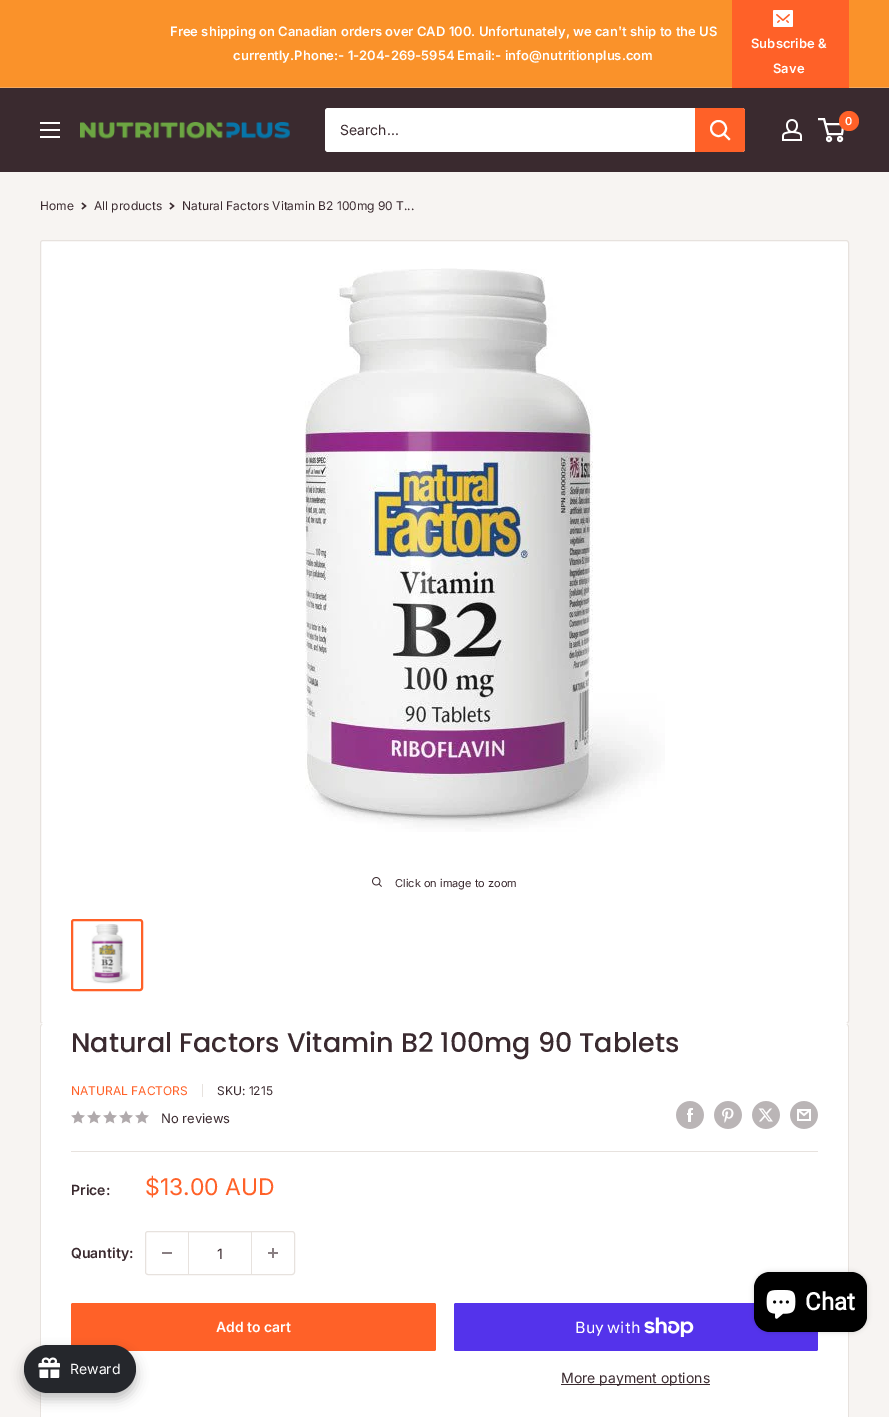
%!PS-Adobe-3.0
%%BoundingBox: 0 0 889 1417
%%LanguageLevel: 3
%%Pages: 1
%%EndComments
%%BeginProlog
/setink { dup -16 bitshift 255 div exch dup -8 bitshift 255 and 255 div exch 255 and 255 div setrgbcolor } def
/usefont { [ exch dup neg 0 0 3 -1 roll 0 0 ] selectfont } def
/setalpha { dup .setfillconstantalpha .setstrokeconstantalpha } def
/disc { newpath 0 360 arc closepath } def
/rrect { 5 dict begin { /r /h /w /y /x } { exch def } forall
  x r add y moveto x w add y 2 copy h add r arct x w add y h add x 1 index r arct
  x y h add x y r arct x y 2 copy exch w add exch r arct closepath end } def
/softshadow { 12 dict begin { /a /b /q /h /w /y /x } { exch def } forall gsave /was 0 def
  9 -2 -9 { dup b mul 4 div /e exch def 1 sub .425 mul 2.718 exch exp 1 add a .99 .min exch div /now exch def
    1 1 now sub 1 was sub div sub setalpha /was now def
    w h .min e 2 mul add 0 gt { x e sub y e sub w e 2 mul add h e 2 mul add
      q e add b .6 mul add w h .min 2 div e add .min 0 .max rrect fill } if } for grestore end } def
/drawimage { 5 dict begin { /h /w /y /x /name } { exch def } forall
  gsave x y translate w h scale
  w h 8 [w 0 0 h 0 0] name (r) file false 3 colorimage grestore end } def
%%EndProlog
%%BeginSetup
<< /PageSize [889 1417] /PageUsesTransparency true >> setpagedevice
%%EndSetup
%%Page: 1 1
0 .pushpdf14devicefilter
0 1417 translate 1 -1 scale
4 setmiterlimit
16#F7F4F2 setink
0 0 889 1417 rectfill
16#FA922A setink
0 0 889 87 rectfill
16#F5AA60 setink
0 87 889 1 rectfill
/Inter-SemiBold 13 usefont
16#FFFFFF setink
170 36 moveto (Free shipping on Canadian orders over CAD 100. Unfortunately, we can't ship to the US) show
233 60 moveto (currently.Phone:- 1-204-269-5954 Email:- info@nutritionplus.com) show
16#FF6128 setink
732 0 117 88 rectfill
(img1.raw) 773 10 20 17 drawimage
16#FFFFFF setink
751 48 moveto (Subscribe &) show
773 73 moveto (Save) show
16#3A2A2F setink
0 88 889 84 rectfill
(img2.raw) 782 119 20 22 drawimage
16#FFFFFF setink
2 setlinewidth
829 139 2 disc stroke
840 139 2 disc stroke
825.5 124 moveto 843.5 124 lineto 842 134 lineto 828 134 lineto 824 119 lineto 818 119 lineto stroke
16#FF6128 setink
849 121 10 disc fill
/Inter-SemiBold 11 usefont
16#FFFFFF setink
845 125 moveto (0) show
(img3.raw) 40 122 20 16 drawimage
(img4.raw) 80 122 210 17 drawimage
325 108 420 44 3 rrect fill
/Inter-Regular 14 usefont
16#3A2A2F setink
340 135 moveto (Search...) show
16#FF6128 setink
695 108 moveto 742 108 lineto 743.5 108 745 109.5 745 111 curveto 745 149 lineto 745 150.5 743.5 152 742 152 curveto 695 152 lineto closepath fill
16#FFFFFF setink
2 setlinecap
729 139 moveto 724 134 lineto stroke
0 setlinecap
718.5 128.5 7.5 disc stroke
/Inter-Regular 12 usefont
16#3A2A2F setink
40 210 moveto (Home) show
1.3 setlinewidth
2 setlinecap
82.5 203.5 moveto 85.5 206 lineto 82.5 208.5 lineto stroke
94 210 moveto (All products) show
170.5 203.5 moveto 173.5 206 lineto 170.5 208.5 lineto stroke
182 210 moveto (Natural Factors Vitamin B2 100mg 90 T...) show
16#FFFFFF setink
40.5 240.5 808 783 2.5 rrect gsave fill grestore
16#E7E2DE setink
1 setlinewidth
0 setlinecap
stroke
(img5.raw) 304 268 361 564 drawimage
(img6.raw) 372 877 10 10 drawimage
/Inter-Regular 11 usefont
16#3A2A2F setink
395 887 moveto (Click on image to zoom) show
16#FF6128 setink
2 setlinewidth
72 920 70 70 2 rrect stroke
(img7.raw) 91 924 39 60 drawimage
16#FFFFFF setink
43 1023 moveto 41 1023 40 1025 40 1027 curveto 40 1025 41 1024 43 1024 curveto 846 1024 lineto 848 1024 849 1025 849 1027 curveto 849 1025 848 1023 846 1023 curveto closepath fill
40 1024 809 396 3 rrect fill
16#E7E2DE setink
43 1024 moveto 846 1024 lineto 848 1024 849 1025 849 1027 curveto 849 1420 lineto 849 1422 848 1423 846 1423 curveto 43 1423 lineto 41 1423 40 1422 40 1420 curveto 40 1027 lineto 40 1025 41 1024 43 1024 curveto closepath 43 1024 moveto 846 1024 lineto 847 1024 848 1025 848 1027 curveto 848 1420 lineto 848 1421 847 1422 846 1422 curveto 43 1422 lineto 42 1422 41 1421 41 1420 curveto 41 1027 lineto 41 1025 42 1024 43 1024 curveto closepath eofill
/Poppins-Medium 27 usefont
16#3A2A2F setink
71 1052 moveto (Natural Factors Vitamin B2 100mg 90 Tablets) show
/Inter-Regular 12 usefont
16#FF6128 setink
71 1095 moveto (NATURAL FACTORS) show
16#E7E2DE setink
202 1084 1 13 rectfill
16#3A2A2F setink
217 1095 moveto (SKU: 1215) show
(img8.raw) 71 1110 14 14 drawimage
(img8.raw) 87 1110 14 14 drawimage
(img8.raw) 103 1110 14 14 drawimage
(img8.raw) 119 1110 14 14 drawimage
(img8.raw) 135 1110 14 14 drawimage
/Inter-Regular 13 usefont
161 1123 moveto (No reviews) show
(img9.raw) 676 1101 28 28 drawimage
(img10.raw) 714 1101 28 28 drawimage
(img11.raw) 752 1101 28 28 drawimage
(img12.raw) 790 1101 28 28 drawimage
16#E7E2DE setink
71 1151 747 1 rectfill
/Inter-SemiBold 14 usefont
16#3A2A2F setink
71 1195 moveto (Price:) show
/Inter-Regular 23 usefont
16#FF6128 setink
145 1195 moveto ($13.00 AUD) show
/Inter-SemiBold 14 usefont
16#3A2A2F setink
71 1258 moveto (Quantity:) show
16#E7E2DE setink
1 setlinewidth
145.5 1231.5 149 43 2.5 rrect stroke
[
    [162 1252 10 2 16#897F82]
    [189 1232 62 1 16#F5F3F2]
    [251 1232 1 42 16#E7E2DE]
    [188 1232 1 42 16#E7E2DE]
] { aload pop setink rectfill } forall
/Inter-Regular 14 usefont
16#3A2A2F setink
217 1259 moveto (1) show
(img13.raw) 268 1248 10 10 drawimage
16#FF6128 setink
71 1303 365 48 2 rrect fill
/Inter-SemiBold 14 usefont
16#FFFFFF setink
216 1332 moveto (Add to cart) show
16#5433EB setink
454 1303 364 48 2 rrect fill
/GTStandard-Regular 16 usefont
16#FFFFFF setink
575 1333 moveto (Buy with) show
(img14.raw) 644 1317 50 20 drawimage
16#3A2A2F setink
561 1384 149 1 rectfill
/Inter-Regular 14 usefont
561 1383 moveto (More payment options) show
16#000000 setink
754 1272 113 60 16 2.5 0.15 softshadow
754 1272 113 60 16 rrect fill
(img15.raw) 766 1290 30 29 drawimage
/Roboto-Bold 24 usefont
16#FFFFFF setink
805 1310 moveto (Chat) show
16#000000 setink
24 1351 112 48 24 6 0.25 softshadow
16#25272C setink
24 1345 112 48 24 rrect fill
(img16.raw) 38 1357 22 21 drawimage
/Inter-Regular 14 usefont
16#FFFFFF setink
70 1374 moveto (Reward) show
.poppdf14devicefilter showpage
%%EOF
